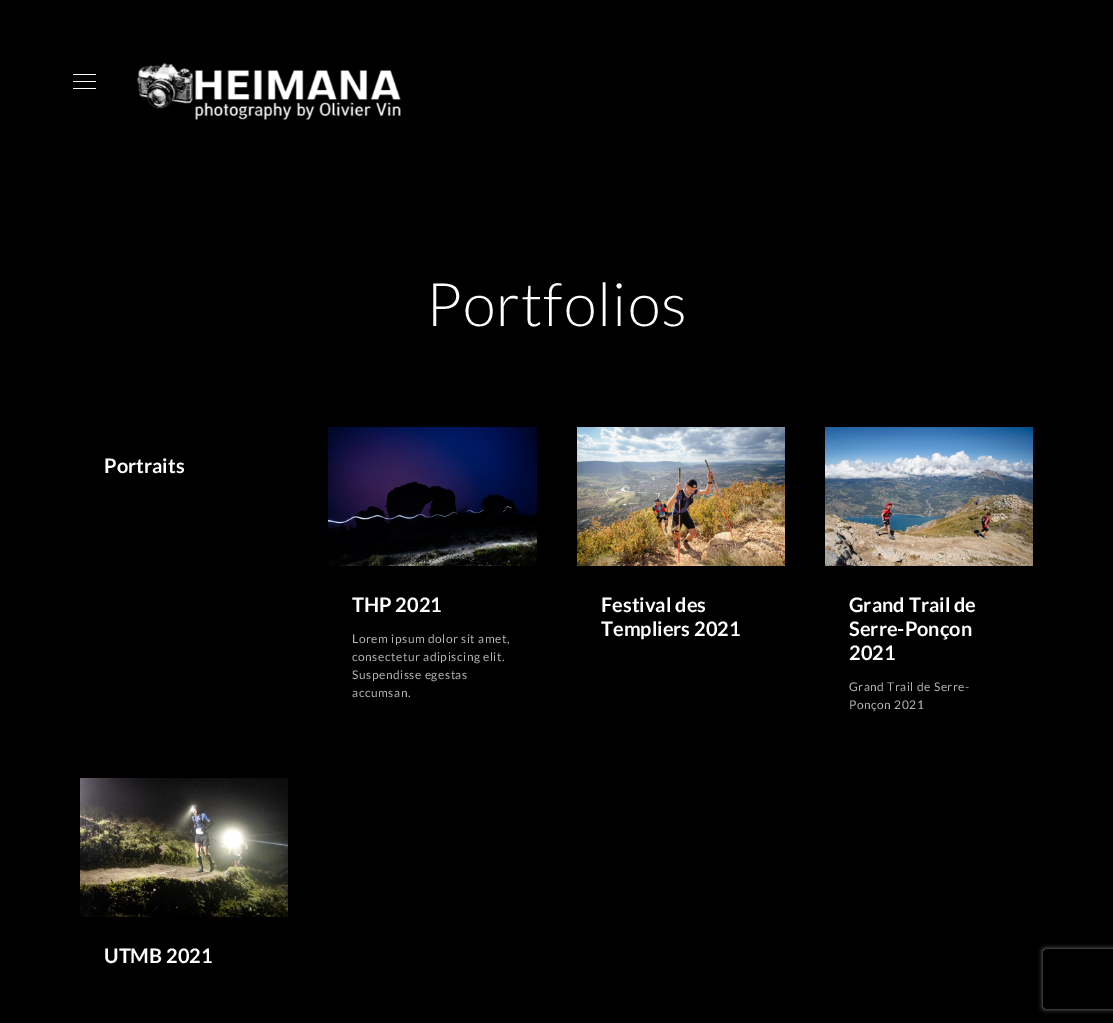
%!PS-Adobe-3.0
%%BoundingBox: 0 0 1113 1023
%%LanguageLevel: 3
%%Pages: 1
%%EndComments
%%BeginProlog
/setink { dup -16 bitshift 255 div exch dup -8 bitshift 255 and 255 div exch 255 and 255 div setrgbcolor } def
/usefont { [ exch dup neg 0 0 3 -1 roll 0 0 ] selectfont } def
/setalpha { dup .setfillconstantalpha .setstrokeconstantalpha } def
/rrect { 5 dict begin { /r /h /w /y /x } { exch def } forall
  x r add y moveto x w add y 2 copy h add r arct x w add y h add x 1 index r arct
  x y h add x y r arct x y 2 copy exch w add exch r arct closepath end } def
/softshadow { 12 dict begin { /a /b /q /h /w /y /x } { exch def } forall gsave /was 0 def
  9 -2 -9 { dup b mul 4 div /e exch def 1 sub .425 mul 2.718 exch exp 1 add a .99 .min exch div /now exch def
    1 1 now sub 1 was sub div sub setalpha /was now def
    w h .min e 2 mul add 0 gt { x e sub y e sub w e 2 mul add h e 2 mul add
      q e add b .6 mul add w h .min 2 div e add .min 0 .max rrect fill } if } for grestore end } def
/drawimage { 5 dict begin { /h /w /y /x /name } { exch def } forall
  gsave x y translate w h scale
  w h 8 [w 0 0 h 0 0] name (r) file false 3 colorimage grestore end } def
%%EndProlog
%%BeginSetup
<< /PageSize [1113 1023] /PageUsesTransparency true >> setpagedevice
%%EndSetup
%%Page: 1 1
0 .pushpdf14devicefilter
0 1023 translate 1 -1 scale
4 setmiterlimit
16#000000 setink
0 0 1113 1023 rectfill
[
    [73 81 23 1 16#FFFFFF]
    [73 74 23 1 16#FFFFFF]
    [73 88 23 1 16#FFFFFF]
] { aload pop setink rectfill } forall
(img1.raw) 137 63 264 57 drawimage
/Lato-Light 60 usefont
426 326 moveto 1 0 (Portfolios) ashow
/Lato-Bold 20 usefont
104 473 moveto (Portraits) show
(img2.raw) 328 427 209 139 drawimage
352 612 moveto (THP 2021) show
/Lato-Regular 12 usefont
16#B3B3B3 setink
352 643 moveto 0.5 0 (Lorem ipsum dolor sit amet,) ashow
352 661 moveto 0.5 0 (consectetur adipiscing elit.) ashow
352 679 moveto 0.5 0 (Suspendisse egestas) ashow
352 697 moveto 0.5 0 (accumsan.) ashow
(img3.raw) 577 427 208 139 drawimage
/Lato-Bold 20 usefont
16#FFFFFF setink
601 612 moveto (Festival des) show
601 636 moveto (Templiers 2021) show
(img4.raw) 825 427 208 139 drawimage
[
    [(Grand Trail de) 849 612]
    [(Serre-Ponçon) 849 636]
    [(2021) 849 660]
] { aload pop moveto show } forall
/Lato-Regular 12 usefont
16#B3B3B3 setink
849 691 moveto 0.5 0 (Grand Trail de Serre-) ashow
849 709 moveto 0.5 0 (Ponçon 2021) ashow
(img5.raw) 80 778 208 139 drawimage
/Lato-Bold 20 usefont
16#FFFFFF setink
104 963 moveto (UTMB 2021) show
gsave
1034 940 moveto 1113 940 lineto 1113 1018 lineto 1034 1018 lineto closepath 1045 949 moveto 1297 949 lineto 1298 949 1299 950 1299 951 curveto 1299 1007 lineto 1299 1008 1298 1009 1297 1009 curveto 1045 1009 lineto 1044 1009 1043 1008 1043 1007 curveto 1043 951 lineto 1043 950 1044 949 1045 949 curveto closepath eoclip newpath
16#808080 setink
1043 949 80 60 2 2.5 1 softshadow
grestore
.poppdf14devicefilter showpage
%%EOF
